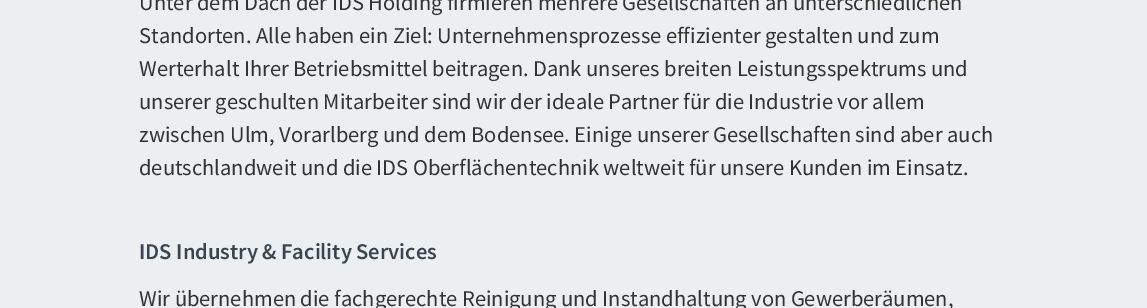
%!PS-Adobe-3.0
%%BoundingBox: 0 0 1147 308
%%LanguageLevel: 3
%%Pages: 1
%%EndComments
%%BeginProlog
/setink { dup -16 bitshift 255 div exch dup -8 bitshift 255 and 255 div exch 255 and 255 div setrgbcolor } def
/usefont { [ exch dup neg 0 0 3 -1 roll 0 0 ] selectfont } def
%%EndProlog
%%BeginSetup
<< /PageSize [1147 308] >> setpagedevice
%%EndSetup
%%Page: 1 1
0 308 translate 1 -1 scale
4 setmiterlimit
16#ECEFF1 setink
0 0 1147 308 rectfill
/SourceSansPro-Regular 22.5 usefont
16#333333 setink
[
    [(Unter dem Dach der IDS Holding firmieren mehrere Gesellschaften an unterschiedlichen) 139 10]
    [(Standorten. Alle haben ein Ziel: Unternehmensprozesse effizienter gestalten und zum) 139 43]
    [(Werterhalt Ihrer Betriebsmittel beitragen. Dank unseres breiten Leistungsspektrums und) 139 76]
    [(unserer geschulten Mitarbeiter sind wir der ideale Partner für die Industrie vor allem) 139 109]
    [(zwischen Ulm, Vorarlberg und dem Bodensee. Einige unserer Gesellschaften sind aber auch) 139 142]
    [(deutschlandweit und die IDS Oberflächentechnik weltweit für unsere Kunden im Einsatz.) 139 175]
] { aload pop moveto show } forall
/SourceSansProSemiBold-SemiBold 22.5 usefont
16#39464F setink
139 259 moveto (IDS Industry & Facility Services) show
/SourceSansPro-Regular 22.5 usefont
16#333333 setink
139 306 moveto (Wir übernehmen die fachgerechte Reinigung und Instandhaltung von Gewerberäumen,) show
showpage
%%EOF
